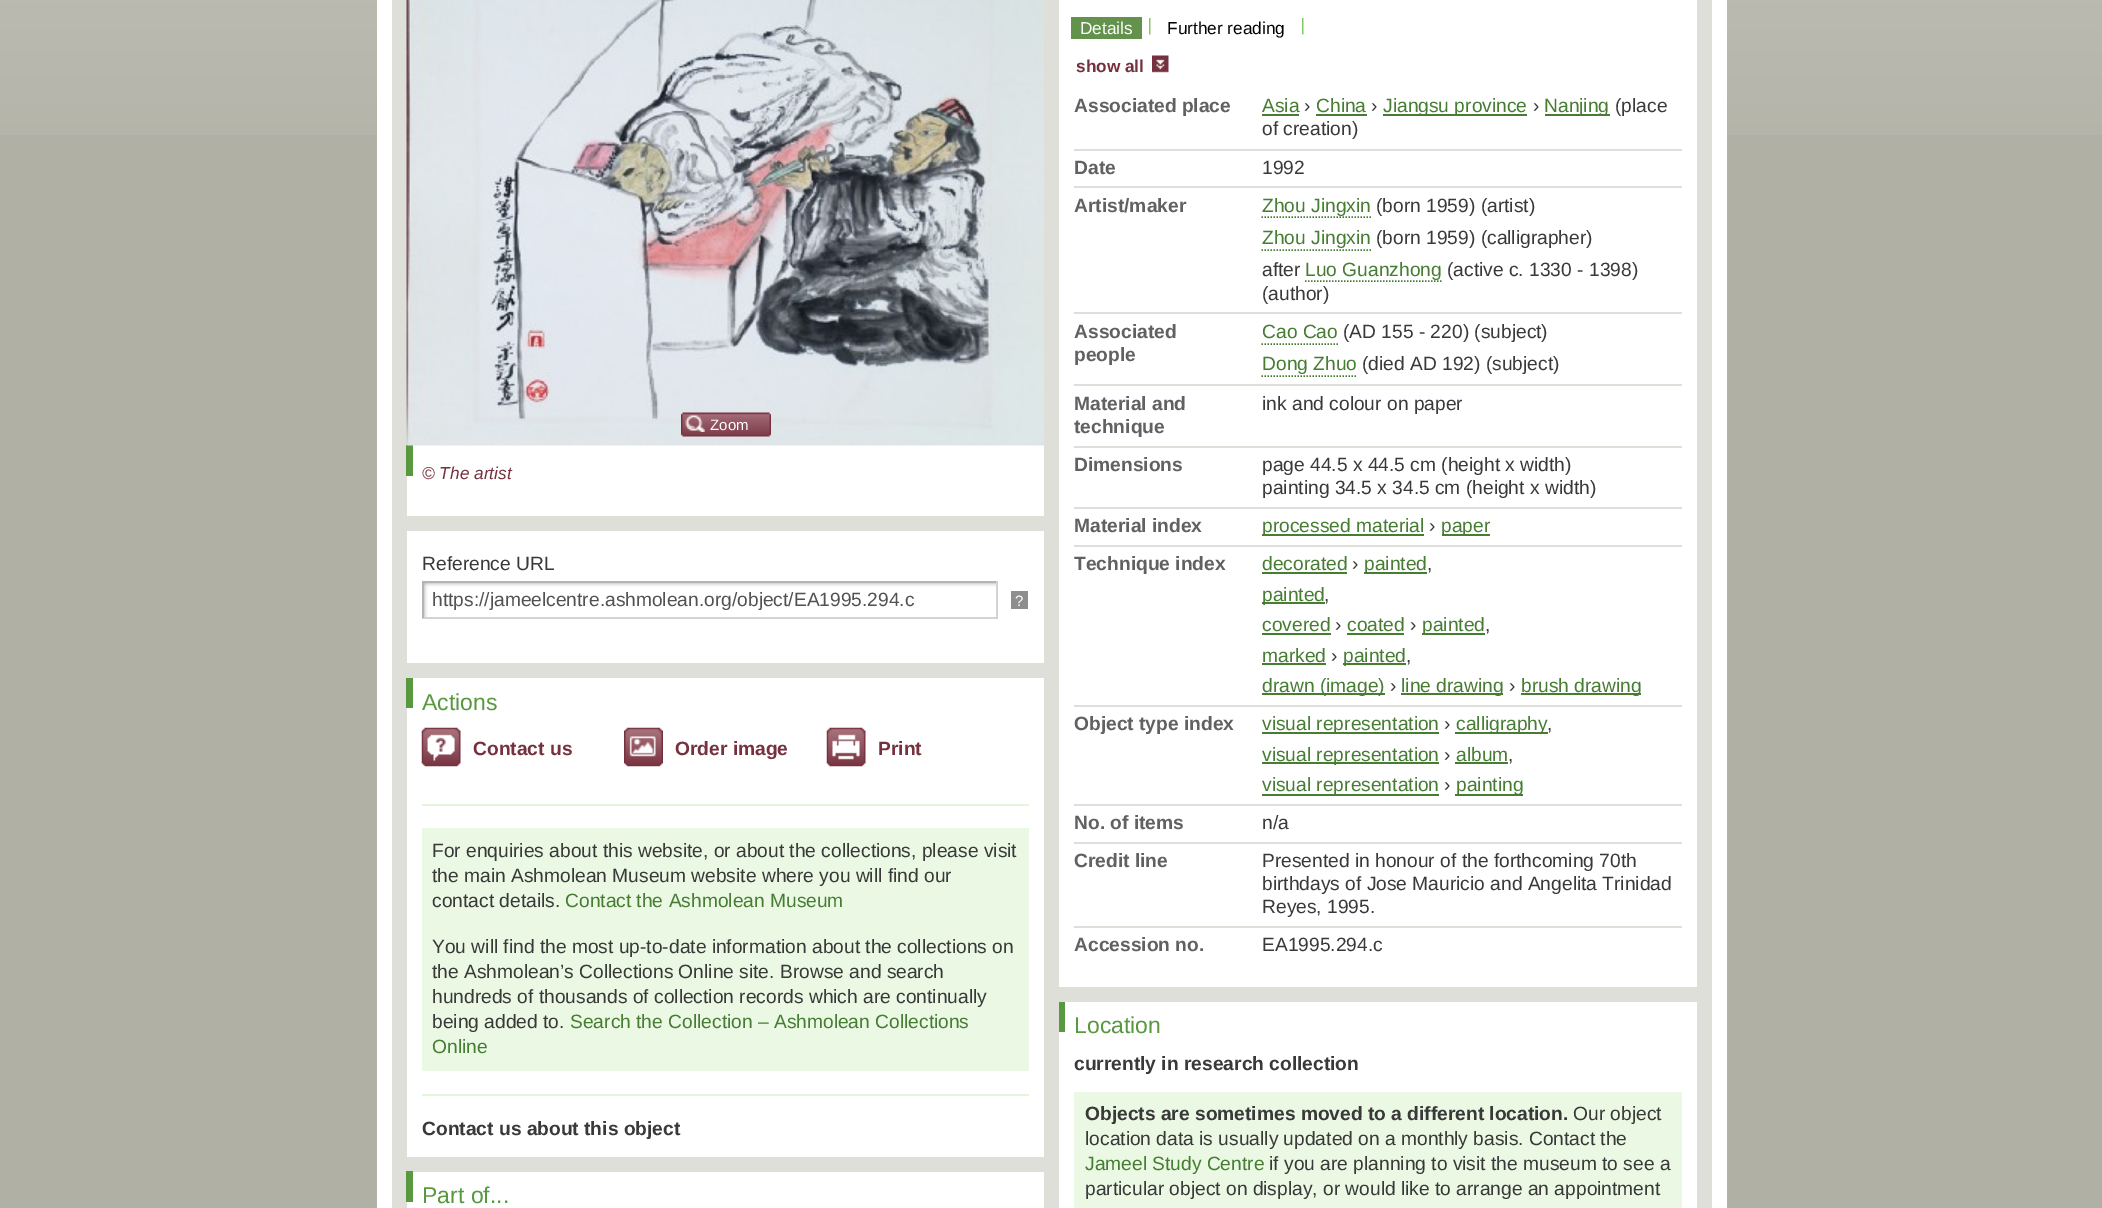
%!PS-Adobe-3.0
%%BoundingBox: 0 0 2102 1208
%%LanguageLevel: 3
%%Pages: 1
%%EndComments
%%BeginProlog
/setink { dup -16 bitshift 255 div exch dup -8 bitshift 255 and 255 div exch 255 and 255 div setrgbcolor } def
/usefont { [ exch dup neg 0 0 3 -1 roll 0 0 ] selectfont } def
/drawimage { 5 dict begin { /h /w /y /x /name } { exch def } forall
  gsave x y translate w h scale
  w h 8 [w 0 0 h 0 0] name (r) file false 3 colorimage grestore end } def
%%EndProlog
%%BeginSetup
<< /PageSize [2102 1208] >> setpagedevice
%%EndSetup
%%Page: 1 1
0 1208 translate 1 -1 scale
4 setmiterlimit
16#B0B0A5 setink
0 0 2102 1208 rectfill
(img1.raw) 0 0 2102 135 drawimage
[
    [377 0 1350 1208 16#FFFFFF]
    [392 0 1320 1208 16#DFDFDA]
    [407 445 637 763 16#FFFFFF]
    [406 445 7 31 16#589940]
] { aload pop setink rectfill } forall
(img2.raw) 406 0 638 446 drawimage
(img3.raw) 681 412 90 25 drawimage
(img4.raw) 685 415 20 17 drawimage
/LiberationSans-Regular 15 usefont
16#FFFFFF setink
710 430 moveto (Zoom) show
16#DFDFDA setink
407 516 637 15 rectfill
/LiberationSans-Italic 17.25 usefont
16#76313F setink
422 479 moveto (© The artist) show
16#DFDFDA setink
407 663 637 15 rectfill
/LiberationSans-Regular 19.2 usefont
16#383938 setink
422 570 moveto (Reference URL) show
(img5.raw) 424 583 572 34 drawimage
[
    [422 581 576 2 16#B4B4B4]
    [996 581 2 37 16#D3D3D3]
    [422 617 576 2 16#D3D3D3]
    [422 581 2 37 16#B4B4B4]
] { aload pop setink rectfill } forall
16#525252 setink
432 606 moveto (https://jameelcentre.ashmolean.org/object/EA1995.294.c) show
16#8E8E8E setink
1011 591 17 18 rectfill
/LiberationSans-Regular 15 usefont
16#FFFFFF setink
1015 606 moveto (?) show
16#589940 setink
406 678 7 30 rectfill
16#DFDFDA setink
407 1157 637 15 rectfill
/LiberationSans-Regular 23 usefont
16#589940 setink
422 710 moveto (Actions) show
(img6.raw) 421 727 40 40 drawimage
/LiberationSans-Bold 19.2 usefont
16#76313F setink
473 755 moveto (Contact us) show
(img7.raw) 624 727 39 40 drawimage
675 755 moveto (Order image) show
(img8.raw) 826 727 40 40 drawimage
878 755 moveto (Print) show
16#E3F5DB setink
422 804 607 2 rectfill
16#EAF8E4 setink
422 828 607 243 rectfill
/LiberationSans-Regular 19.2 usefont
16#383938 setink
[
    [(For enquiries about this website, or about the collections, please visit) 432 857]
    [(the main Ashmolean Museum website where you will find our) 432 882]
    [(contact details.) 432 907]
] { aload pop moveto show } forall
16#467D33 setink
565 907 moveto (Contact the Ashmolean Museum) show
16#383938 setink
[
    [(You will find the most up-to-date information about the collections on) 432 953]
    [(the Ashmolean’s Collections Online site. Browse and search) 432 978]
    [(hundreds of thousands of collection records which are continually) 432 1003]
    [(being added to.) 432 1028]
] { aload pop moveto show } forall
16#467D33 setink
570 1028 moveto (Search the Collection – Ashmolean Collections) show
432 1053 moveto (Online) show
16#E3F5DB setink
422 1094 607 2 rectfill
/LiberationSans-Bold 19.2 usefont
16#383938 setink
422 1135 moveto (Contact us about this object) show
16#589940 setink
406 1171 7 31 rectfill
/LiberationSans-Regular 23 usefont
422 1203 moveto (Part of...) show
16#FFFFFF setink
1059 0 638 1208 rectfill
16#DFDFDA setink
1059 987 638 15 rectfill
(img9.raw) 1149 18 2 17 drawimage
16#62924C setink
1071 17 71 22 rectfill
/LiberationSans-Regular 17.25 usefont
16#FFFFFF setink
1080 34 moveto (Details) show
(img9.raw) 1302 18 2 17 drawimage
16#000000 setink
1167 34 moveto (Further reading) show
/LiberationSans-Bold 17.25 usefont
16#76313F setink
1076 72 moveto (show all) show
(img10.raw) 1152 55 17 18 drawimage
16#DFDFDA setink
1074 149 608 2 rectfill
/LiberationSans-Bold 19.2 usefont
16#616161 setink
1074 112 moveto (Associated place) show
/LiberationSans-Regular 19.2 usefont
16#467D33 setink
1262 112 moveto (Asia) show
1262 114 37 2 rectfill
16#383938 setink
1304 112 moveto (›) show
16#467D33 setink
1316 112 moveto (China) show
1316 114 51 2 rectfill
16#383938 setink
1371 112 moveto (›) show
16#467D33 setink
1383 114 144 2 rectfill
1383 112 moveto (Jiangsu province) show
16#383938 setink
1533 112 moveto (›) show
16#467D33 setink
1545 114 65 2 rectfill
1544 112 moveto (Nanjing) show
16#383938 setink
1615 112 moveto (\(place) show
1262 135 moveto (of creation\)) show
16#DFDFDA setink
1074 186 608 2 rectfill
/LiberationSans-Bold 19.2 usefont
16#616161 setink
1074 174 moveto (Date) show
/LiberationSans-Regular 19.2 usefont
16#383938 setink
1262 174 moveto (1992) show
16#DFDFDA setink
1074 312 608 2 rectfill
/LiberationSans-Bold 19.2 usefont
16#616161 setink
1074 212 moveto (Artist/maker) show
16#467D33 setink
1.5 setlinewidth
[1.5 1.5] 0 setdash
1261.5 217 moveto 1371 217 lineto stroke
/LiberationSans-Regular 19.2 usefont
1262 212 moveto (Zhou Jingxin) show
16#383938 setink
1376 212 moveto (\(born 1959\) \(artist\)) show
16#467D33 setink
1261.5 250 moveto 1371 250 lineto stroke
1262 244 moveto (Zhou Jingxin) show
16#383938 setink
1376 244 moveto (\(born 1959\) \(calligrapher\)) show
1262 276 moveto (after) show
16#467D33 setink
1305 281 moveto 1441.5 281 lineto stroke
1305 276 moveto (Luo Guanzhong) show
16#383938 setink
1447 276 moveto (\(active c. 1330 - 1398\)) show
1262 300 moveto (\(author\)) show
16#DFDFDA setink
1074 384 608 2 rectfill
/LiberationSans-Bold 19.2 usefont
16#616161 setink
1074 338 moveto (Associated) show
1074 361 moveto (people) show
16#467D33 setink
1261.5 344 moveto 1338 344 lineto stroke
/LiberationSans-Regular 19.2 usefont
1262 338 moveto (Cao Cao) show
16#383938 setink
1343 338 moveto (\(AD 155 - 220\) \(subject\)) show
16#467D33 setink
1261.5 376 moveto 1356 376 lineto stroke
1262 370 moveto (Dong Zhuo) show
16#383938 setink
1362 370 moveto (\(died AD 192\) \(subject\)) show
16#DFDFDA setink
1074 446 608 2 rectfill
/LiberationSans-Bold 19.2 usefont
16#616161 setink
1074 410 moveto (Material and) show
1074 433 moveto (technique) show
/LiberationSans-Regular 19.2 usefont
16#383938 setink
1262 410 moveto (ink and colour on paper) show
16#DFDFDA setink
1074 507 608 2 rectfill
/LiberationSans-Bold 19.2 usefont
16#616161 setink
1074 471 moveto (Dimensions) show
/LiberationSans-Regular 19.2 usefont
16#383938 setink
1262 471 moveto (page 44.5 x 44.5 cm \(height x width\)) show
1262 494 moveto (painting 34.5 x 34.5 cm \(height x width\)) show
16#DFDFDA setink
1074 545 608 2 rectfill
/LiberationSans-Bold 19.2 usefont
16#616161 setink
1074 532 moveto (Material index) show
16#467D33 setink
1262 534 162 2 rectfill
/LiberationSans-Regular 19.2 usefont
1262 532 moveto (processed material) show
16#383938 setink
1429 532 moveto (›) show
16#467D33 setink
1442 534 48 2 rectfill
1441 532 moveto (paper) show
16#DFDFDA setink
1074 705 608 2 rectfill
/LiberationSans-Bold 19.2 usefont
16#616161 setink
1074 570 moveto (Technique index) show
/LiberationSans-Regular 19.2 usefont
16#467D33 setink
1262 570 moveto (decorated) show
1262 572 85 2 rectfill
16#383938 setink
1352 570 moveto (›) show
16#467D33 setink
1364 572 63 2 rectfill
1364 570 moveto (painted) show
16#383938 setink
1427 570 moveto (,) show
16#467D33 setink
1262 602 63 2 rectfill
1262 601 moveto (painted) show
16#383938 setink
1324 601 moveto (,) show
16#467D33 setink
1262 631 moveto (covered) show
1262 633 69 2 rectfill
16#383938 setink
1335 631 moveto (›) show
16#467D33 setink
1347 631 moveto (coated) show
1347 633 57 2 rectfill
16#383938 setink
1410 631 moveto (›) show
16#467D33 setink
1422 633 63 2 rectfill
1422 631 moveto (painted) show
16#383938 setink
1485 631 moveto (,) show
16#467D33 setink
1262 662 moveto (marked) show
1262 663 64 2 rectfill
16#383938 setink
1331 662 moveto (›) show
16#467D33 setink
1343 663 63 2 rectfill
1343 662 moveto (painted) show
16#383938 setink
1406 662 moveto (,) show
16#467D33 setink
1262 693 123 2 rectfill
1262 692 moveto (drawn \(image\)) show
16#383938 setink
1390 692 moveto (›) show
16#467D33 setink
1401 693 102 2 rectfill
1401 692 moveto (line drawing) show
16#383938 setink
1509 692 moveto (›) show
16#467D33 setink
1521 693 120 2 rectfill
1521 692 moveto (brush drawing) show
16#DFDFDA setink
1074 804 608 2 rectfill
/LiberationSans-Bold 19.2 usefont
16#616161 setink
1074 730 moveto (Object type index) show
16#467D33 setink
1262 732 177 2 rectfill
/LiberationSans-Regular 19.2 usefont
1262 730 moveto (visual representation) show
16#383938 setink
1444 730 moveto (›) show
16#467D33 setink
1455 732 93 2 rectfill
1456 730 moveto (calligraphy) show
16#383938 setink
1547 730 moveto (,) show
16#467D33 setink
1262 762 177 2 rectfill
1262 761 moveto (visual representation) show
16#383938 setink
1444 761 moveto (›) show
16#467D33 setink
1456 761 moveto (album) show
1455 762 53 2 rectfill
16#383938 setink
1508 761 moveto (,) show
16#467D33 setink
1262 794 177 2 rectfill
1262 791 moveto (visual representation) show
16#383938 setink
1444 791 moveto (›) show
16#467D33 setink
1455 794 68 2 rectfill
1456 791 moveto (painting) show
16#DFDFDA setink
1074 842 608 2 rectfill
/LiberationSans-Bold 19.2 usefont
16#616161 setink
1074 829 moveto (No. of items) show
/LiberationSans-Regular 19.2 usefont
16#383938 setink
1262 829 moveto (n/a) show
16#DFDFDA setink
1074 926 608 2 rectfill
/LiberationSans-Bold 19.2 usefont
16#616161 setink
1074 867 moveto (Credit line) show
/LiberationSans-Regular 19.2 usefont
16#383938 setink
[
    [(Presented in honour of the forthcoming 70th) 1262 867]
    [(birthdays of Jose Mauricio and Angelita Trinidad) 1262 890]
    [(Reyes, 1995.) 1262 913]
] { aload pop moveto show } forall
/LiberationSans-Bold 19.2 usefont
16#616161 setink
1074 951 moveto (Accession no.) show
/LiberationSans-Regular 19.2 usefont
16#383938 setink
1262 951 moveto (EA1995.294.c) show
16#589940 setink
1059 1002 6 30 rectfill
/LiberationSans-Regular 23 usefont
1074 1033 moveto (Location) show
/LiberationSans-Bold 19.2 usefont
16#383938 setink
1074 1070 moveto (currently in research collection) show
16#EAF8E4 setink
1074 1092 608 116 rectfill
16#383938 setink
1085 1120 moveto (Objects are sometimes moved to a different location.) show
/LiberationSans-Regular 19.2 usefont
1573 1120 moveto (Our object) show
1085 1145 moveto (location data is usually updated on a monthly basis. Contact the) show
16#467D33 setink
1085 1170 moveto (Jameel Study Centre) show
16#383938 setink
1269 1170 moveto (if you are planning to visit the museum to see a) show
1085 1195 moveto (particular object on display, or would like to arrange an appointment) show
showpage
%%EOF
